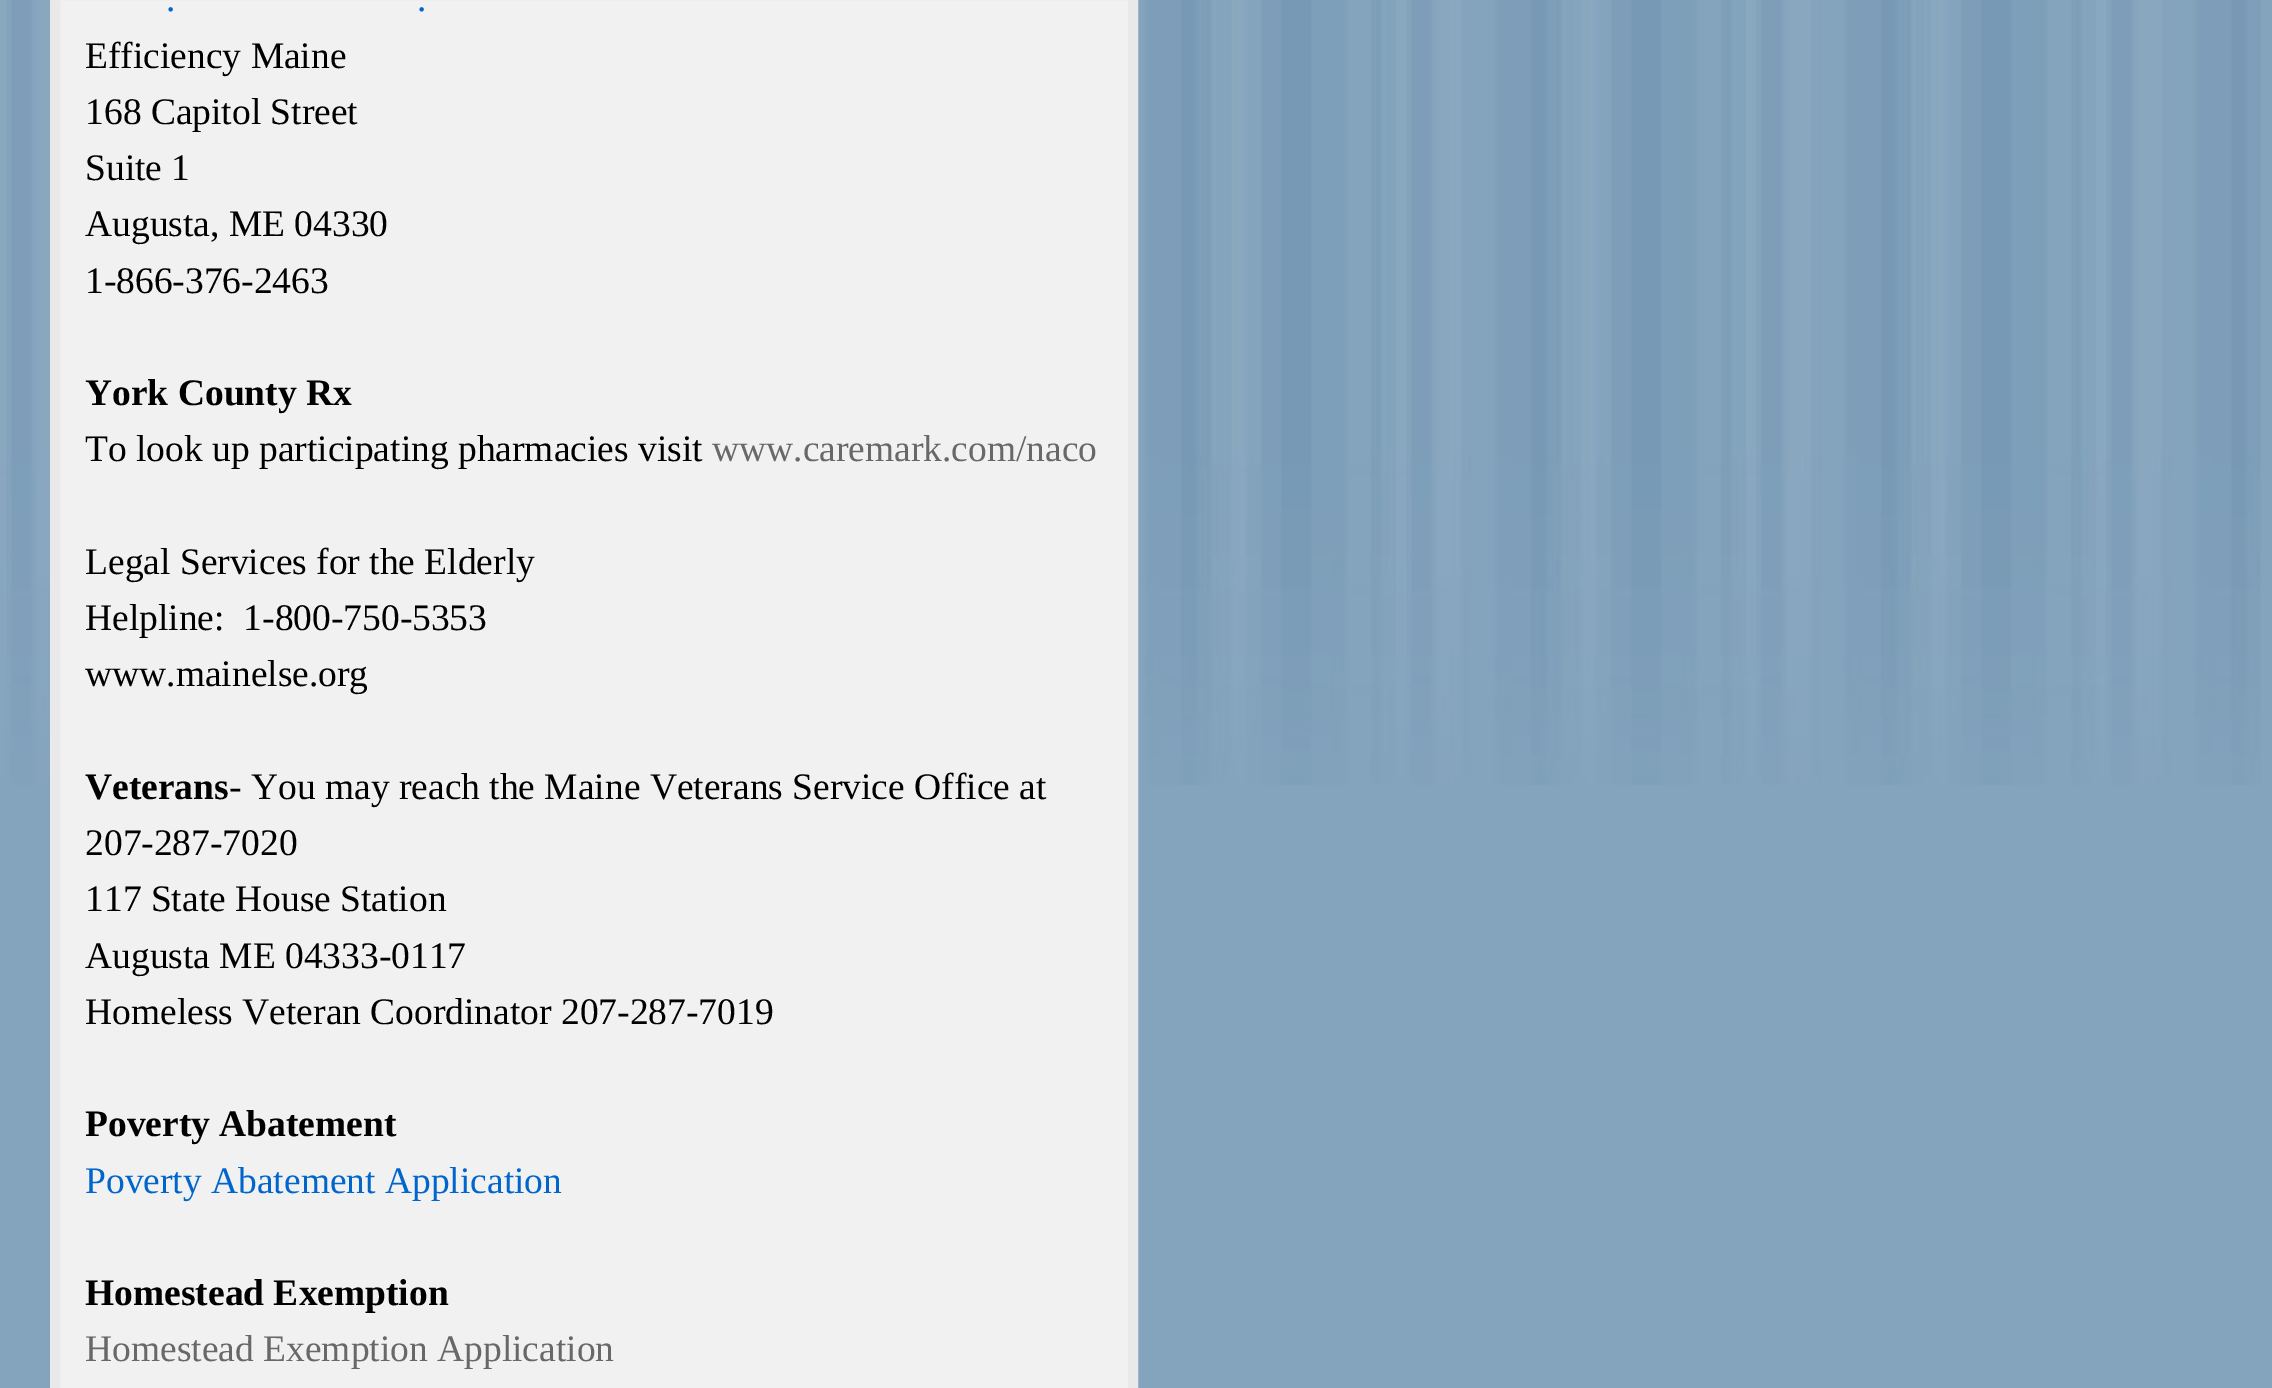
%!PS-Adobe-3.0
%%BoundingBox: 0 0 2272 1388
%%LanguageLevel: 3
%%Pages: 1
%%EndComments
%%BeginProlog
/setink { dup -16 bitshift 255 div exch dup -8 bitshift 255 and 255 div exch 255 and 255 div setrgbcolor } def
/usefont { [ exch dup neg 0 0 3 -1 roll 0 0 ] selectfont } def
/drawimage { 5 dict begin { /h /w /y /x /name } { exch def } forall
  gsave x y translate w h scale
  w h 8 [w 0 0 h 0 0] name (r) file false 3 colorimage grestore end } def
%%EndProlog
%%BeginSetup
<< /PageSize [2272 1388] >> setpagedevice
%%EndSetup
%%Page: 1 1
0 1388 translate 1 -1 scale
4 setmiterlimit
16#84A4BD setink
0 0 2272 1388 rectfill
(img1.raw) 0 0 2261 785 drawimage
16#F1F1F1 setink
55 -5 moveto 1133 -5 lineto 1133 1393 lineto 55 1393 lineto closepath gsave fill grestore
16#E9E9E9 setink
10 setlinewidth
stroke
/LiberationSerif-Regular 37.5 usefont
16#0066CC setink
166 11 moveto (.) show
417 11 moveto (.) show
16#000000 setink
[
    [(Efficiency Maine) 85 68]
    [(168 Capitol Street) 85 124]
    [(Suite 1) 85 180]
    [(Augusta, ME 04330) 85 236]
    [(1-866-376-2463) 85 293]
] { aload pop moveto show } forall
/LiberationSerif-Bold 37.5 usefont
85 405 moveto (York County Rx) show
/LiberationSerif-Regular 37.5 usefont
85 461 moveto (To look up participating pharmacies visit) show
16#686868 setink
712 461 moveto (www.caremark.com/naco) show
16#000000 setink
[
    [(Legal Services for the Elderly) 85 574]
    [(Helpline:  1-800-750-5353) 85 630]
    [(www.mainelse.org) 85 686]
] { aload pop moveto show } forall
/LiberationSerif-Bold 37.5 usefont
85 799 moveto (Veterans) show
/LiberationSerif-Regular 37.5 usefont
[
    [(- You may reach the Maine Veterans Service Office at) 229 799]
    [(207-287-7020) 85 855]
    [(117 State House Station) 85 911]
    [(Augusta ME 04333-0117) 85 968]
    [(Homeless Veteran Coordinator 207-287-7019) 85 1024]
] { aload pop moveto show } forall
/LiberationSerif-Bold 37.5 usefont
85 1136 moveto (Poverty Abatement) show
/LiberationSerif-Regular 37.5 usefont
16#0066CC setink
85 1193 moveto (Poverty Abatement Application) show
/LiberationSerif-Bold 37.5 usefont
16#000000 setink
85 1305 moveto (Homestead Exemption) show
/LiberationSerif-Regular 37.5 usefont
16#686868 setink
85 1361 moveto (Homestead Exemption Application) show
showpage
%%EOF
